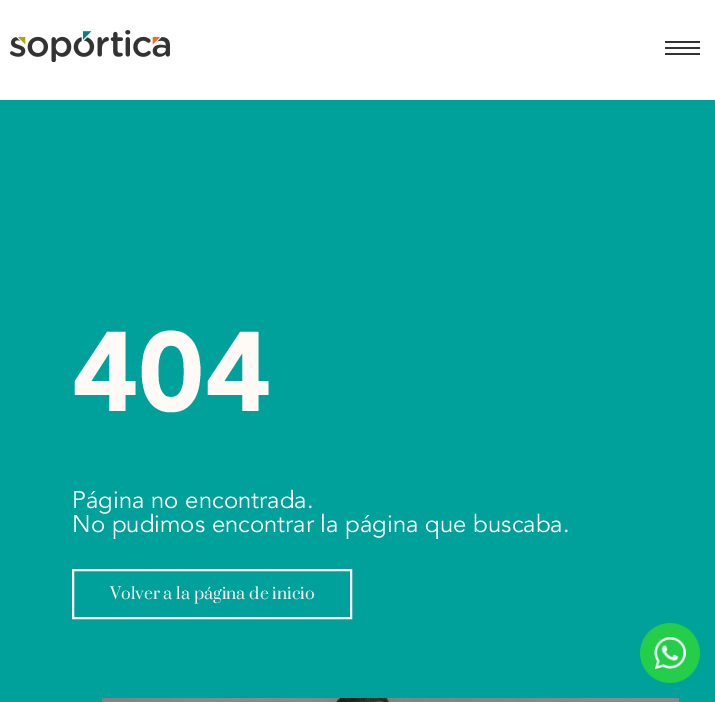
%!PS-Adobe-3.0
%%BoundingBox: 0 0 715 702
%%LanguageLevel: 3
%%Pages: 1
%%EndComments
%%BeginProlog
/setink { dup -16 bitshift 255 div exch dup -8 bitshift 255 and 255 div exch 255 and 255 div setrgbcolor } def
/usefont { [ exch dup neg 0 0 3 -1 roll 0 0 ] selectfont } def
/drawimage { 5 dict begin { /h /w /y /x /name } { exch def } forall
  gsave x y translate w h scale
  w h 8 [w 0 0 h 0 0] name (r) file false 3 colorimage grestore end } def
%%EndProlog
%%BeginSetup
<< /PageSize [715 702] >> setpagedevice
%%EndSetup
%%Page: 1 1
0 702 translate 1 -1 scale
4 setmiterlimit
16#FFFFFF setink
0 0 715 702 rectfill
(img1.raw) 10 30 160 32 drawimage
[
    [665 41 35 2 16#333333]
    [665 47 35 2 16#333333]
    [665 53 35 2 16#333333]
    [0 100 715 602 16#00A19B]
] { aload pop setink rectfill } forall
/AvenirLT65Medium-Black 112 usefont
16#FFFAF5 setink
72 411 moveto (404) show
/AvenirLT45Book-Regular 24 usefont
16#FFFFFF setink
72 508 moveto (Página no encontrada.) show
72 532 moveto (No pudimos encontrar la página que buscaba.) show
16#FFFAF5 setink
2 setlinewidth
73 570 278 48 rectstroke
/Prata-Regular 16 usefont
110 599 moveto (Volver a la página de inicio) show
(img2.raw) 102 698 577 4 drawimage
(img3.raw) 640 623 60 60 drawimage
showpage
%%EOF
